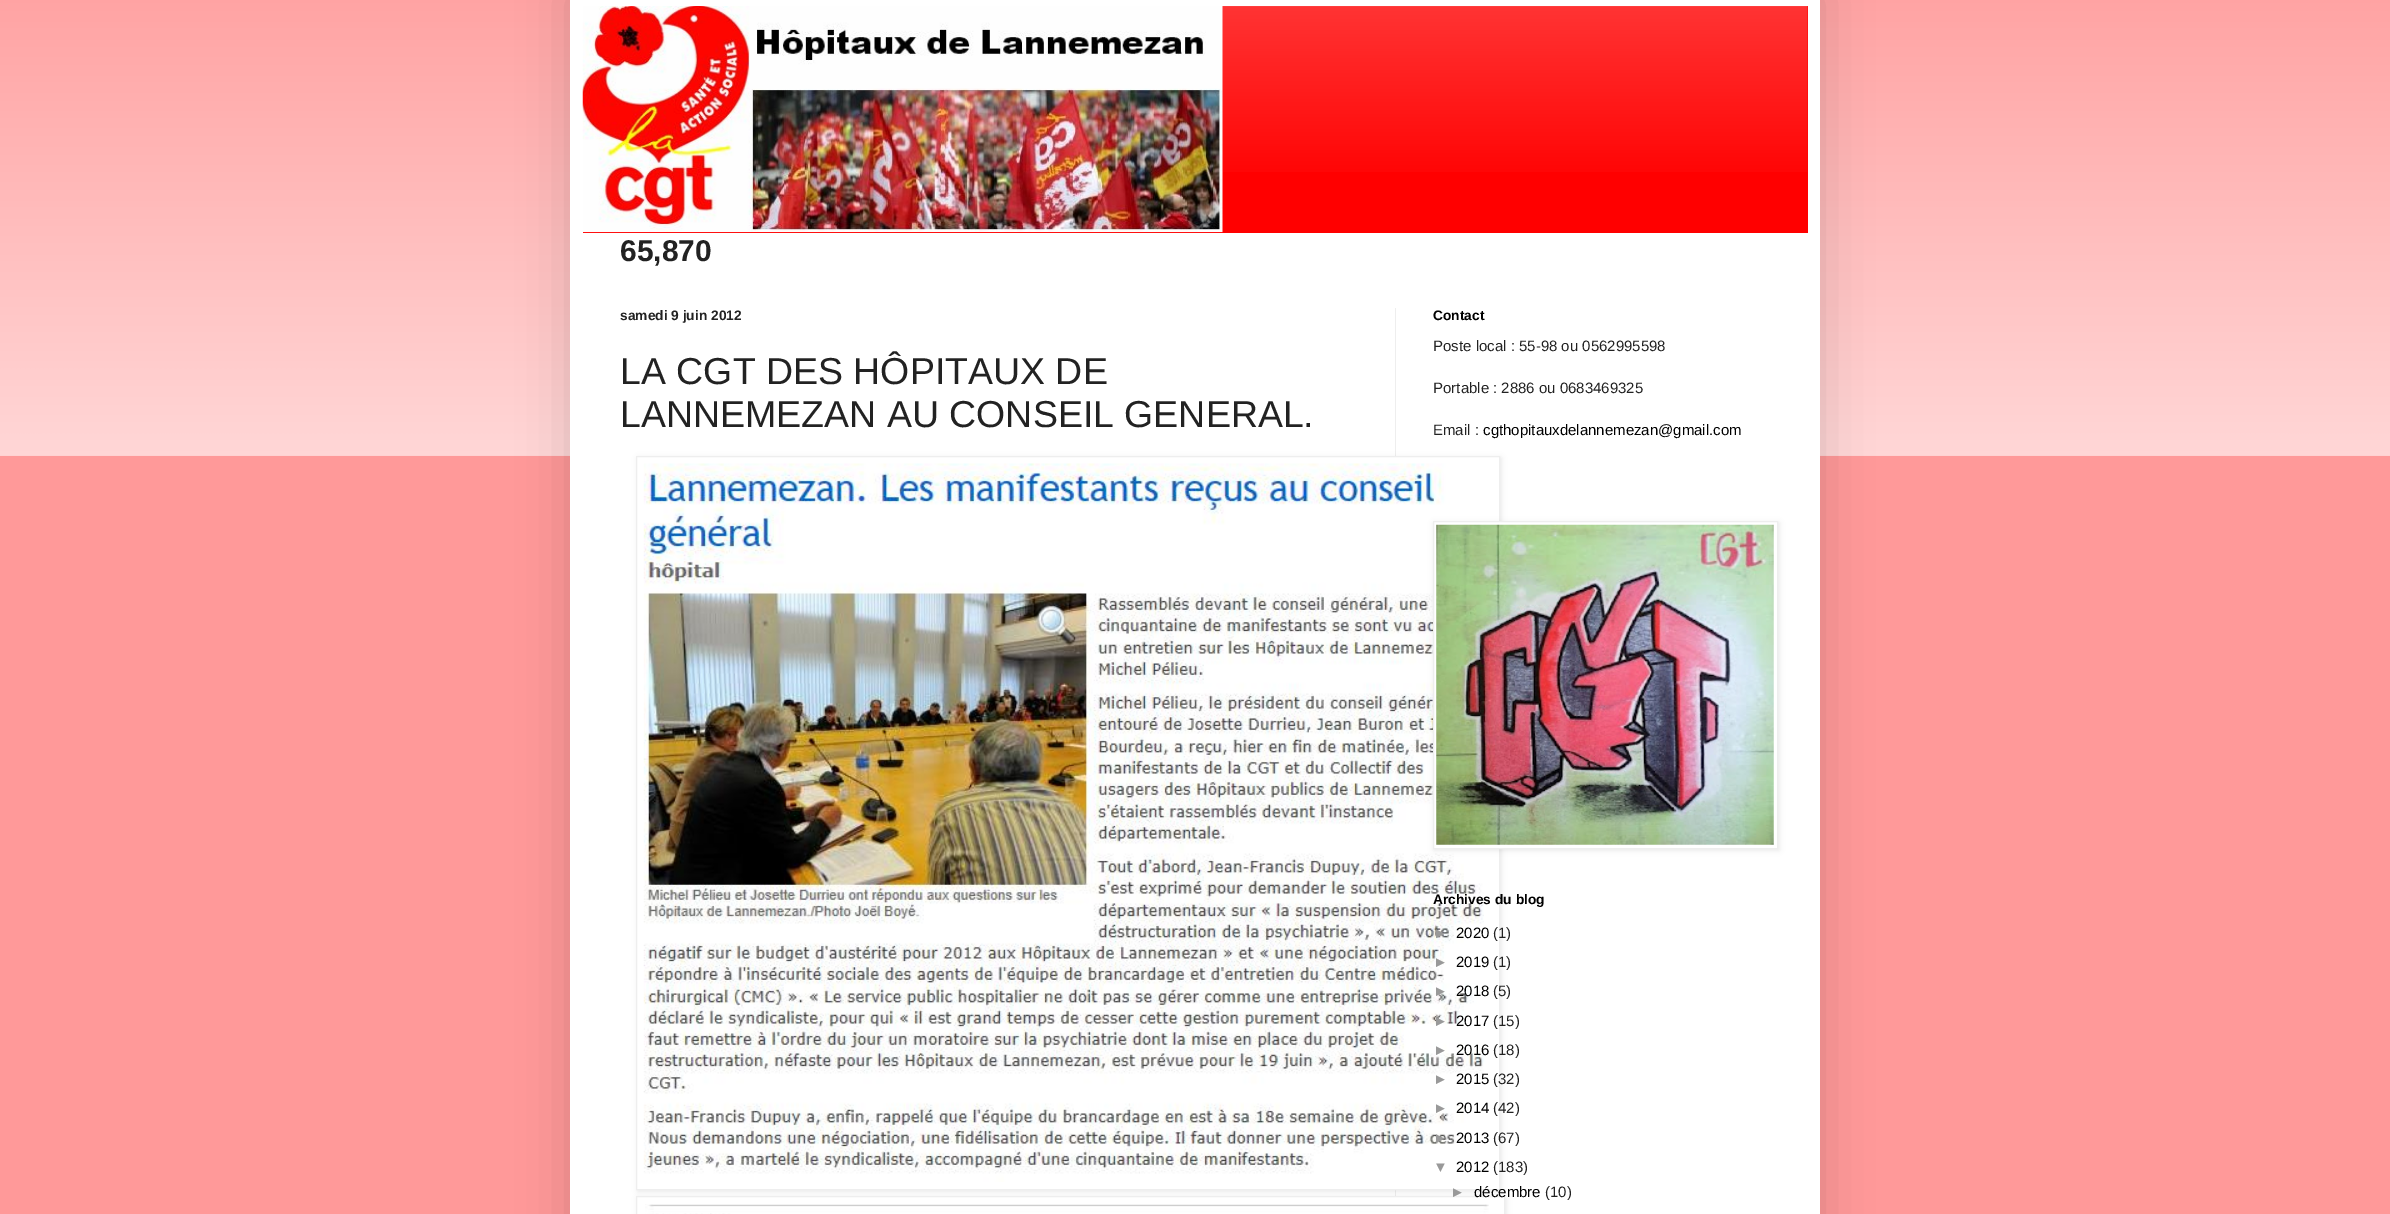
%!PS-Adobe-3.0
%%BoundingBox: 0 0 2390 1214
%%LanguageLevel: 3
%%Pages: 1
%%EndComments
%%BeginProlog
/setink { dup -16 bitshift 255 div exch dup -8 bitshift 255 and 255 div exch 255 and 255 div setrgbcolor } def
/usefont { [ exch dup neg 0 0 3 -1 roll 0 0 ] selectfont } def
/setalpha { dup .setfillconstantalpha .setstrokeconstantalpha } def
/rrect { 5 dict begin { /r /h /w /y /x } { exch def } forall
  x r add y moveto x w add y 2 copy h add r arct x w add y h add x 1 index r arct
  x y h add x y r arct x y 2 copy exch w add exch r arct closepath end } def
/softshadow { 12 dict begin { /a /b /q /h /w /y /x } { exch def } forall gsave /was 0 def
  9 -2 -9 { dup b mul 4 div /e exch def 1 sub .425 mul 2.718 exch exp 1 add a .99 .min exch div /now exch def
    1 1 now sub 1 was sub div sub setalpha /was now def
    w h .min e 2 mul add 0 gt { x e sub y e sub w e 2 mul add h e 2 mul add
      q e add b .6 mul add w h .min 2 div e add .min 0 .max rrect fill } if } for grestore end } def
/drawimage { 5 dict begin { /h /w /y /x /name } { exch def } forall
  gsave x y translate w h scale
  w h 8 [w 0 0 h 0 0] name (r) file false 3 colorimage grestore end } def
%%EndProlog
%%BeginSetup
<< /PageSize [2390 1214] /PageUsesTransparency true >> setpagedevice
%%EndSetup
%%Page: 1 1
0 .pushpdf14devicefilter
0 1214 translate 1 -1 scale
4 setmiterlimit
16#FF9999 setink
0 0 2390 1214 rectfill
(img1.raw) 0 0 2390 456 drawimage
16#000000 setink
570 -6 1250 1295 0 25 0.15 softshadow
16#FFFFFF setink
570 0 1250 1214 rectfill
16#FF0000 setink
583 6 1225 227 rectfill
(img2.raw) 1222 6 586 166 drawimage
(img3.raw) 582 6 641 227 drawimage
/LiberationSans-Bold 30 usefont
16#222222 setink
620 261 moveto (65,870) show
16#EEEEEE setink
1395 308 1 888 rectfill
/LiberationSans-Bold 13.75 usefont
16#222222 setink
620 320 moveto (samedi 9 juin 2012) show
/LiberationSans-Regular 37.5 usefont
620 384 moveto (LA CGT DES HÔPITAUX DE) show
620 427 moveto (LANNEMEZAN AU CONSEIL GENERAL.) show
16#000000 setink
638 458 863 733 0 3 0.1 softshadow
16#FFFFFF setink
636.5 456.5 moveto 1499.5 456.5 lineto 1499.5 1189.5 lineto 636.5 1189.5 lineto closepath gsave fill grestore
16#EEEEEE setink
stroke
(img4.raw) 643 463 843 719 drawimage
16#000000 setink
638 1198 868 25 0 3 0.1 softshadow
16#FFFFFF setink
636.5 1196.5 moveto 1504.5 1196.5 lineto 1504.5 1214.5 lineto 636.5 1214.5 lineto closepath gsave fill grestore
16#EEEEEE setink
stroke
(img5.raw) 645 1204 844 10 drawimage
/LiberationSans-Bold 13.75 usefont
16#000000 setink
1433 320 moveto (Contact) show
/LiberationSans-Regular 15 usefont
16#222222 setink
[
    [(Poste local : 55-98 ou 0562995598) 1433 351]
    [(Portable : 2886 ou 0683469325) 1433 393]
    [(Email :) 1433 435]
] { aload pop moveto show } forall
16#000000 setink
1483 435 moveto (cgthopitauxdelannemezan@gmail.com) show
1434 523 345 327 0 3 0.1 softshadow
16#FFFFFF setink
1433.5 521.5 moveto 1777.5 521.5 lineto 1777.5 848.5 lineto 1433.5 848.5 lineto closepath gsave fill grestore
16#EEEEEE setink
stroke
(img6.raw) 1436 524 338 321 drawimage
/LiberationSans-Bold 13.75 usefont
16#000000 setink
1433 904 moveto (Archives du blog) show
/LiberationSans-Regular 15 usefont
16#999999 setink
1433 938 moveto (►) show
16#000000 setink
1456 938 moveto (2020) show
16#222222 setink
1493 938 moveto (\(1\)) show
16#999999 setink
1433 967 moveto (►) show
16#000000 setink
1456 967 moveto (2019) show
16#222222 setink
1493 967 moveto (\(1\)) show
16#999999 setink
1433 996 moveto (►) show
16#000000 setink
1456 996 moveto (2018) show
16#222222 setink
1493 996 moveto (\(5\)) show
16#999999 setink
1433 1026 moveto (►) show
16#000000 setink
1456 1026 moveto (2017) show
16#222222 setink
1493 1026 moveto (\(15\)) show
16#999999 setink
1433 1055 moveto (►) show
16#000000 setink
1456 1055 moveto (2016) show
16#222222 setink
1493 1055 moveto (\(18\)) show
16#999999 setink
1433 1084 moveto (►) show
16#000000 setink
1456 1084 moveto (2015) show
16#222222 setink
1493 1084 moveto (\(32\)) show
16#999999 setink
1433 1113 moveto (►) show
16#000000 setink
1456 1113 moveto (2014) show
16#222222 setink
1493 1113 moveto (\(42\)) show
16#999999 setink
1433 1143 moveto (►) show
16#000000 setink
1456 1143 moveto (2013) show
16#222222 setink
1493 1143 moveto (\(67\)) show
16#999999 setink
1433 1172 moveto (▼) show
16#000000 setink
1456 1172 moveto (2012) show
16#222222 setink
1493 1172 moveto (\(183\)) show
16#999999 setink
1450 1197 moveto (►) show
16#000000 setink
1474 1197 moveto (décembre) show
16#222222 setink
1545 1197 moveto (\(10\)) show
.poppdf14devicefilter showpage
%%EOF
